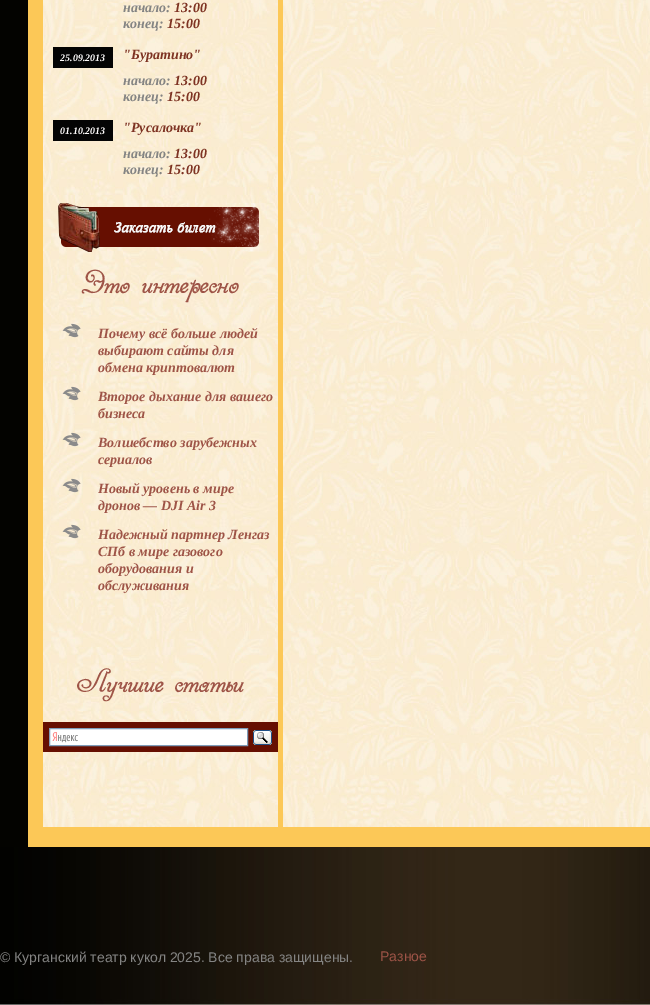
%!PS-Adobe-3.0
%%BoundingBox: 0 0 650 1005
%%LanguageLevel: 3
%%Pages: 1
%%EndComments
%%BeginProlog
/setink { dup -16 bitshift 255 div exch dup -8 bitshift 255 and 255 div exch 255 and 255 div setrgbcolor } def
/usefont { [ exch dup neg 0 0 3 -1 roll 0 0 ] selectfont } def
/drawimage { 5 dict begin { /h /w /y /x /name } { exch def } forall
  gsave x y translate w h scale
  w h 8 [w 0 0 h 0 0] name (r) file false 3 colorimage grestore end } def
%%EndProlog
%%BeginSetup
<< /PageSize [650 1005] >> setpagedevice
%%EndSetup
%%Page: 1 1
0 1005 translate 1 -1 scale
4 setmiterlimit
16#030300 setink
0 0 650 1005 rectfill
16#FCC857 setink
28 0 622 847 rectfill
(img1.raw) 43 0 235 827 drawimage
/LiberationSerif-BoldItalic 14 usefont
16#848483 setink
123 12 moveto (начало:) show
16#7E3323 setink
174 12 moveto (13:00) show
16#848483 setink
123 28 moveto (конец:) show
16#7E3323 setink
167 28 moveto (15:00) show
16#040404 setink
53 47 60 21 rectfill
/LiberationSerif-BoldItalic 10 usefont
16#FDFBFB setink
60 61 moveto (25.09.2013) show
/LiberationSerif-BoldItalic 14 usefont
16#7E3323 setink
123 59 moveto ("Буратино") show
16#848483 setink
123 85 moveto (начало:) show
16#7E3323 setink
174 85 moveto (13:00) show
16#848483 setink
123 101 moveto (конец:) show
16#7E3323 setink
167 101 moveto (15:00) show
16#040404 setink
53 120 60 21 rectfill
/LiberationSerif-BoldItalic 10 usefont
16#FDFBFB setink
60 134 moveto (01.10.2013) show
/LiberationSerif-BoldItalic 14 usefont
16#7E3323 setink
123 132 moveto ("Русалочка") show
16#848483 setink
123 158 moveto (начало:) show
16#7E3323 setink
174 158 moveto (13:00) show
16#848483 setink
123 174 moveto (конец:) show
16#7E3323 setink
167 174 moveto (15:00) show
(img2.raw) 58 203 201 49 drawimage
/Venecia-Bold 24 usefont
16#9E5447 setink
82 293 moveto (Это интересно) show
(img3.raw) 62 323 19 15 drawimage
/LiberationSerif-BoldItalic 14 usefont
[
    [(Почему всё больше людей) 98 338]
    [(выбирают сайты для) 98 355]
    [(обмена криптовалют) 98 372]
] { aload pop moveto show } forall
(img4.raw) 62 386 19 15 drawimage
98 401 moveto (Второе дыхание для вашего) show
98 418 moveto (бизнеса) show
(img5.raw) 62 432 19 15 drawimage
98 447 moveto (Волшебство зарубежных) show
98 464 moveto (сериалов) show
(img6.raw) 62 478 19 15 drawimage
98 493 moveto (Новый уровень в мире) show
98 510 moveto (дронов — DJI Air 3) show
(img7.raw) 62 524 19 15 drawimage
[
    [(Надежный партнер Ленгаз) 98 539]
    [(СПб в мире газового) 98 556]
    [(оборудования и) 98 573]
    [(обслуживания) 98 590]
] { aload pop moveto show } forall
/Venecia-Bold 24 usefont
77 692 moveto (Лучшие статьи) show
16#660F01 setink
43 722 235 30 rectfill
16#FFFFFF setink
50 729 197 16 rectfill
(img8.raw) 52 732 26 11 drawimage
16#7F9DB9 setink
49.5 728.5 198 17 rectstroke
(img9.raw) 253 730 19 15 drawimage
(img10.raw) 283 0 367 827 drawimage
(img11.raw) 0 847 650 158 drawimage
/LiberationSans-Regular 14 usefont
16#848483 setink
0 962 moveto (© Курганский театр кукол 2025. Все права защищены.) show
16#9E5447 setink
380 961 moveto (Разное) show
showpage
%%EOF
